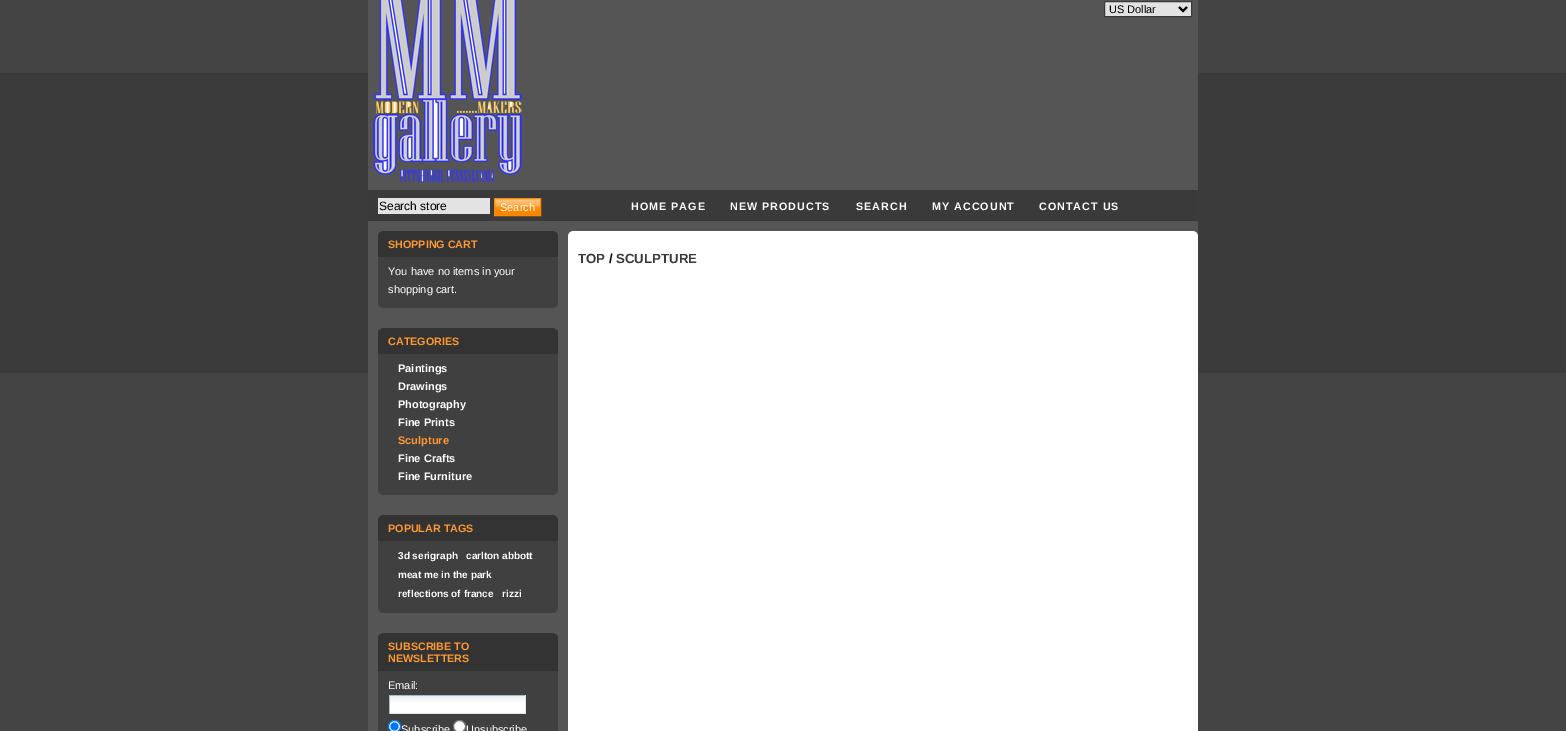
%!PS-Adobe-3.0
%%BoundingBox: 0 0 1566 731
%%LanguageLevel: 3
%%Pages: 1
%%EndComments
%%BeginProlog
/setink { dup -16 bitshift 255 div exch dup -8 bitshift 255 and 255 div exch 255 and 255 div setrgbcolor } def
/usefont { [ exch dup neg 0 0 3 -1 roll 0 0 ] selectfont } def
/disc { newpath 0 360 arc closepath } def
/drawimage { 5 dict begin { /h /w /y /x /name } { exch def } forall
  gsave x y translate w h scale
  w h 8 [w 0 0 h 0 0] name (r) file false 3 colorimage grestore end } def
%%EndProlog
%%BeginSetup
<< /PageSize [1566 731] >> setpagedevice
%%EndSetup
%%Page: 1 1
0 731 translate 1 -1 scale
4 setmiterlimit
16#444444 setink
0 0 1566 731 rectfill
16#3B3B3B setink
0 73 1566 300 rectfill
16#555555 setink
368 0 830 731 rectfill
(img1.raw) 373 0 149 183 drawimage
16#E3E3E3 setink
1104.5 1.5 moveto 1191.5 1.5 lineto 1191.5 16.5 lineto 1104.5 16.5 lineto closepath gsave fill grestore
16#3A3A3A setink
stroke
16#000000 setink
2 setlinewidth
1179 7 moveto 1183 11 lineto 1187 7 lineto stroke
/LiberationSans-Regular 11 usefont
1109 13 moveto (US Dollar) show
16#3A3A3A setink
368 190 830 31 rectfill
16#E3E3E3 setink
378 198 112 16 rectfill
/LiberationSans-Regular 12 usefont
16#000000 setink
379 210 moveto (Search store) show
(img2.raw) 495 199 45 16 drawimage
16#FF8800 setink
1 setlinewidth
494.5 198.5 46 17 rectstroke
/LiberationSans-Regular 11 usefont
16#FFFFFF setink
500 211 moveto (Search) show
/LiberationSans-Bold 10.75 usefont
631 210 moveto 1 0 (HOME PAGE) ashow
730 210 moveto 1 0 (NEW PRODUCTS) ashow
856 210 moveto 1 0 (SEARCH) ashow
932 210 moveto 1 0 (MY ACCOUNT) ashow
1039 210 moveto 1 0 (CONTACT US) ashow
16#333333 setink
378 235 180 22 rectfill
(img3.raw) 378 231 180 4 drawimage
16#FF9933 setink
388 248 moveto (SHOPPING CART) show
16#404040 setink
378 257 180 47 rectfill
(img4.raw) 378 304 180 4 drawimage
/LiberationSans-Regular 11 usefont
16#FFFFFF setink
388 275 moveto (You have no items in your) show
388 293 moveto (shopping cart.) show
16#333333 setink
378 332 180 22 rectfill
(img3.raw) 378 328 180 4 drawimage
/LiberationSans-Bold 10.75 usefont
16#FF9933 setink
388 345 moveto (CATEGORIES) show
16#404040 setink
378 354 180 137 rectfill
(img4.raw) 378 491 180 4 drawimage
/LiberationSans-Bold 11 usefont
16#FFFFFF setink
[
    [(Paintings) 398 372]
    [(Drawings) 398 390]
    [(Photography) 398 408]
    [(Fine Prints) 398 426]
] { aload pop moveto show } forall
16#FF9933 setink
398 444 moveto (Sculpture) show
16#FFFFFF setink
398 462 moveto (Fine Crafts) show
398 480 moveto (Fine Furniture) show
16#333333 setink
378 519 180 22 rectfill
(img3.raw) 378 515 180 4 drawimage
/LiberationSans-Bold 10.75 usefont
16#FF9933 setink
388 532 moveto (POPULAR TAGS) show
16#404040 setink
378 541 180 68 rectfill
(img4.raw) 378 609 180 4 drawimage
/LiberationSans-Bold 10 usefont
16#FFFFFF setink
[
    [(3d serigraph) 398 559]
    [(carlton abbott) 466 559]
    [(meat me in the park) 398 578]
    [(reflections of france) 398 597]
    [(rizzi) 502 597]
] { aload pop moveto show } forall
16#333333 setink
378 637 180 34 rectfill
(img3.raw) 378 633 180 4 drawimage
/LiberationSans-Bold 10.75 usefont
16#FF9933 setink
388 650 moveto (SUBSCRIBE TO) show
388 662 moveto (NEWSLETTERS) show
16#404040 setink
378 671 180 60 rectfill
/LiberationSans-Regular 11 usefont
16#FFFFFF setink
388 689 moveto (Email:) show
390 702 135 11 rectfill
(img5.raw) 390 696 135 6 drawimage
[
    [389 695 137 1 16#A8BAC2]
    [525 695 1 19 16#DFE5E7]
    [389 713 137 1 16#DFE5E7]
    [389 695 1 19 16#A8BAC2]
] { aload pop setink rectfill } forall
16#FFFFFF setink
394.5 726.5 6 disc gsave fill grestore
16#0075FF setink
stroke
394.5 726.5 4 disc fill
16#FFFFFF setink
401 733 moveto (Subscribe) show
459.5 726.5 6 disc gsave fill grestore
16#767676 setink
stroke
16#FFFFFF setink
466 733 moveto (Unsubscribe) show
568 236 630 495 rectfill
(img6.raw) 568 231 630 5 drawimage
/LiberationSans-Bold 13.25 usefont
16#3A3A3A setink
578 263 moveto (TOP) show
16#000000 setink
609 263 moveto (/) show
16#3A3A3A setink
616 263 moveto (SCULPTURE) show
showpage
%%EOF
